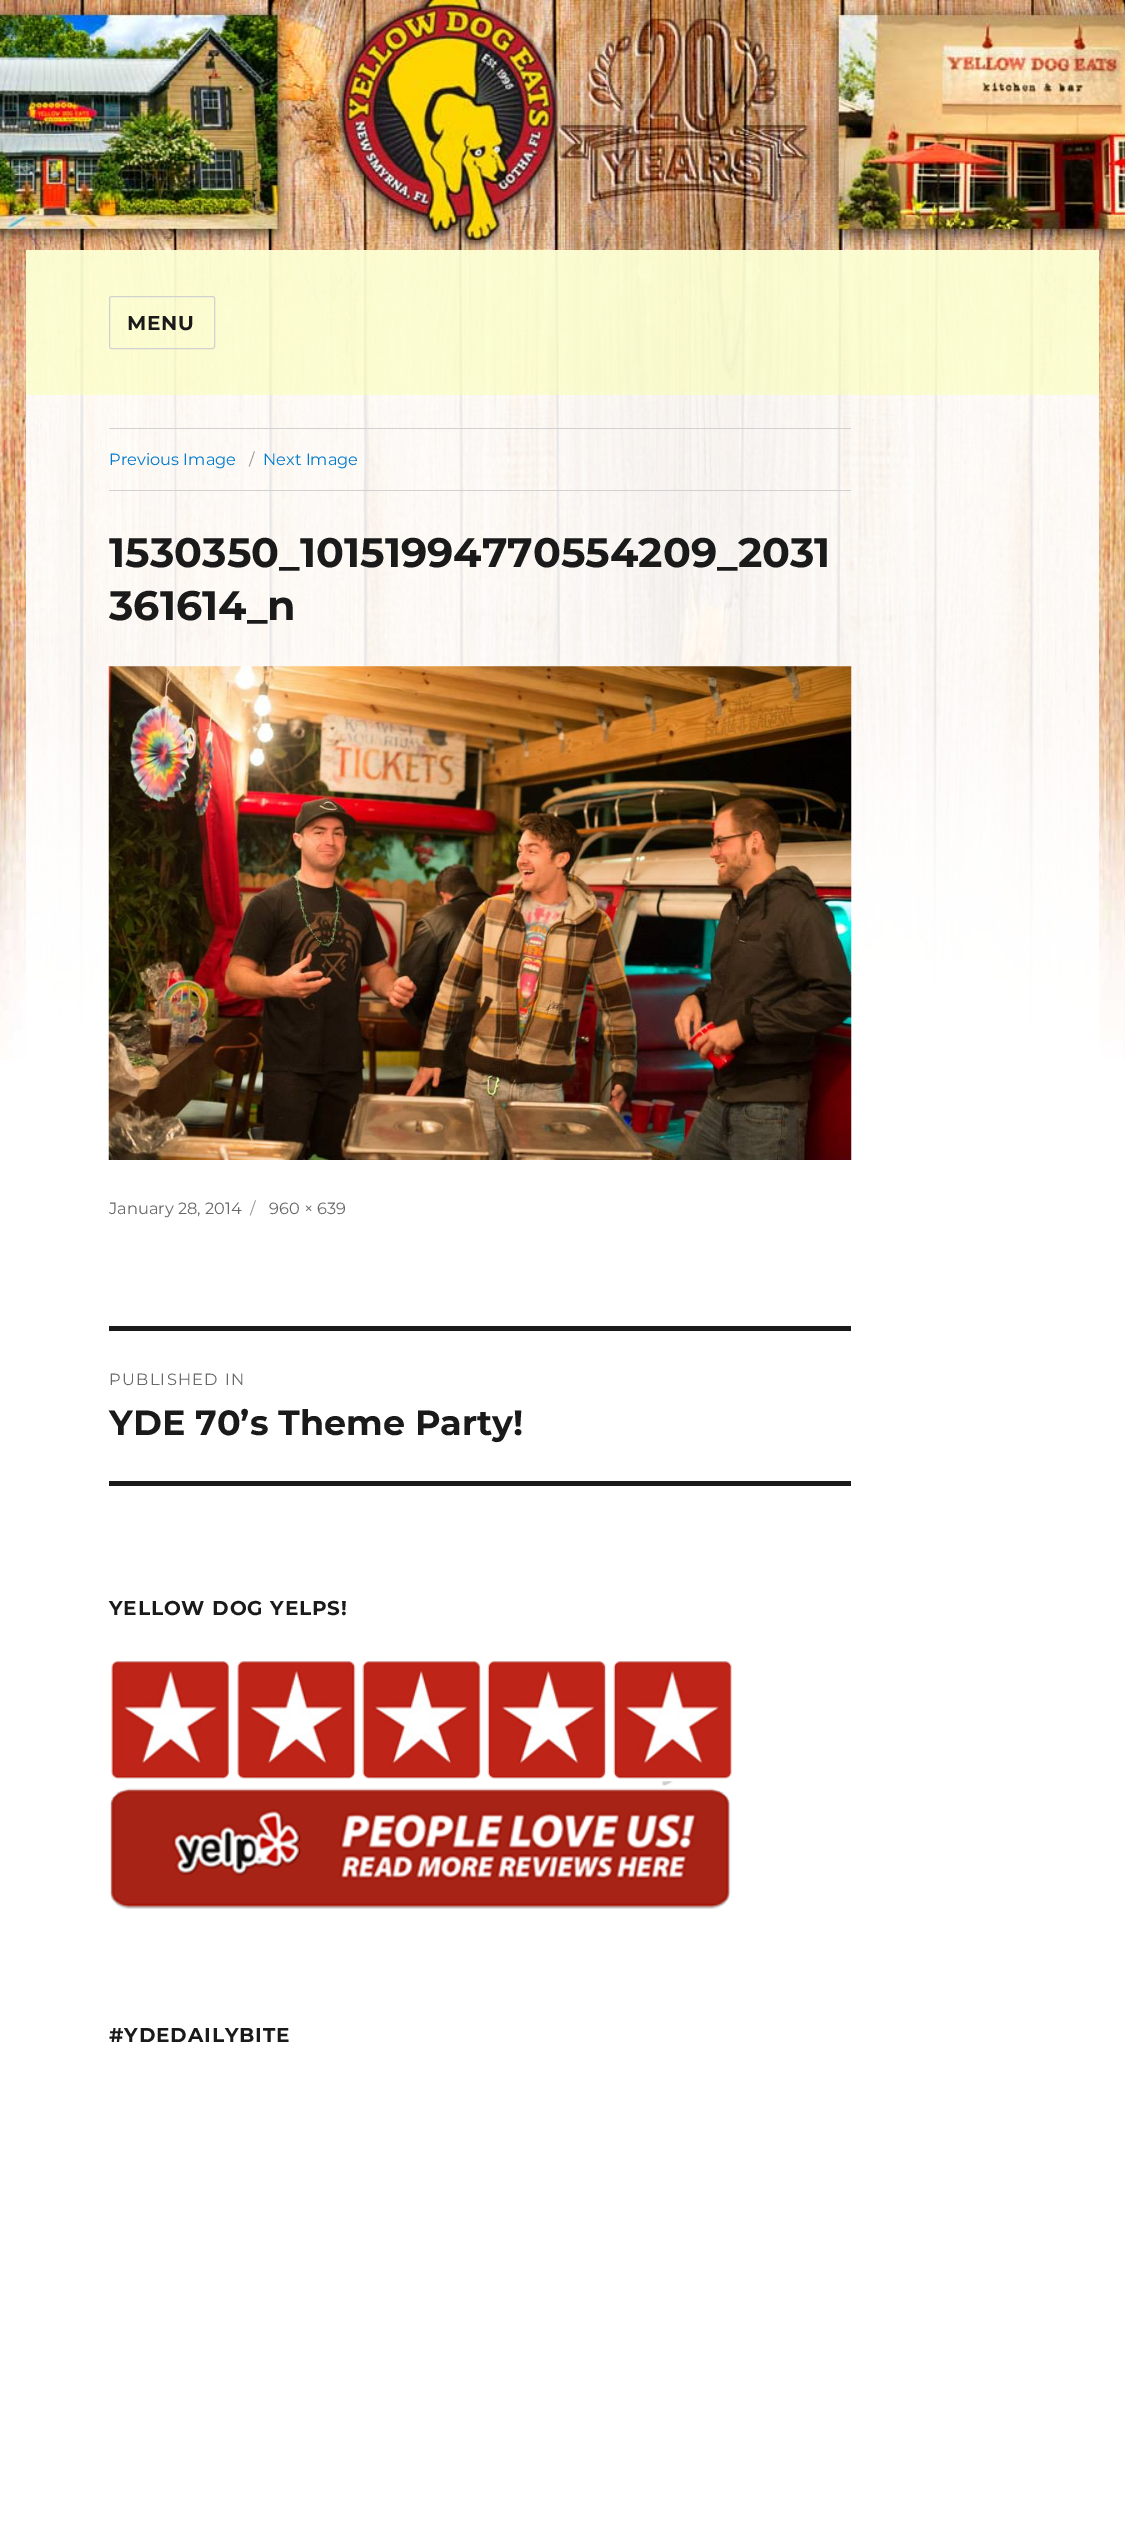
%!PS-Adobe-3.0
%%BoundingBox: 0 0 1125 2546
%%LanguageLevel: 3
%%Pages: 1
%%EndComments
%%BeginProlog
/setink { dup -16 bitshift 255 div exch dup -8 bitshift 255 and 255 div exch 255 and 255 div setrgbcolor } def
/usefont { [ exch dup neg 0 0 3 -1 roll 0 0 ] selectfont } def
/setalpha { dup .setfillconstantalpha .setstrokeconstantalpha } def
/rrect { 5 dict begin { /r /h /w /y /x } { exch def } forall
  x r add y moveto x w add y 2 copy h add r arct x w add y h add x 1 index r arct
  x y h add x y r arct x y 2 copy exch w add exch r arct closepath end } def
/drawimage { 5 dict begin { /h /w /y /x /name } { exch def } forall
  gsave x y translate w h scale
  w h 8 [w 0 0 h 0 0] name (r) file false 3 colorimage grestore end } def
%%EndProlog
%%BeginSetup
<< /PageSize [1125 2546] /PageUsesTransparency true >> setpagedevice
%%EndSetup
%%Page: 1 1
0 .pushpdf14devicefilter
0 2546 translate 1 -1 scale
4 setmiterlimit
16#FFFFFF setink
0 0 1125 2546 rectfill
(img1.raw) 0 0 1125 1060 drawimage
0.9 setalpha
26 250 1073 810 rectfill
0.5 setalpha
16#FAFFAD setink
26 250 1073 145 rectfill
1 setalpha
16#D1D1D1 setink
109.5 296.5 105 52 2 rrect stroke
/Montserrat-Bold 20 usefont
16#1A1A1A setink
127 330 moveto 0.9 0 (MENU) ashow
16#D1D1D1 setink
109 428 742 1 rectfill
109 490 742 1 rectfill
/Montserrat-Regular 16.25 usefont
16#007ACC setink
109 465 moveto (Previous Image) show
16#959493 setink
249 465 moveto (/) show
16#007ACC setink
263 465 moveto (Next Image) show
/Montserrat-Bold 41.25 usefont
16#1A1A1A setink
109 567 moveto (1530350_10151994770554209_2031) show
109 620 moveto (361614_n) show
(img2.raw) 108 666 744 494 drawimage
/Montserrat-Regular 16.25 usefont
16#686868 setink
109 1214 moveto (January 28, 2014) show
16#959493 setink
250 1214 moveto (/) show
16#686868 setink
269 1214 moveto (960 × 639) show
16#1A1A1A setink
109 1326 742 5 rectfill
109 1481 742 5 rectfill
16#686868 setink
109 1385 moveto 1.25 0 (PUBLISHED IN) ashow
/Montserrat-Bold 35 usefont
16#1A1A1A setink
109 1435 moveto (YDE 70’s Theme Party!) show
/Montserrat-Bold 20 usefont
109 1615 moveto 0.9 0 (YELLOW DOG YELPS!) ashow
(img3.raw) 110 1661 622 248 drawimage
109 2042 moveto 0.9 0 (#YDEDAILYBITE) ashow
.poppdf14devicefilter showpage
%%EOF
